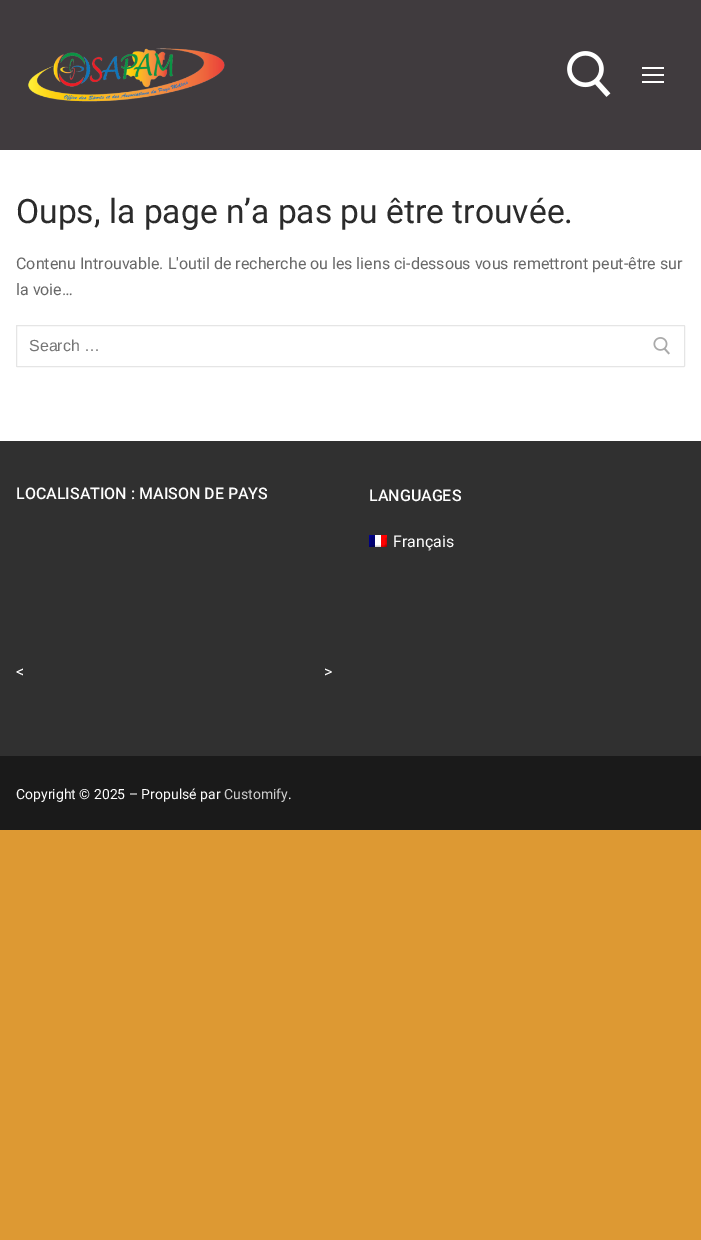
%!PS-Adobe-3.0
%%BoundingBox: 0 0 701 1240
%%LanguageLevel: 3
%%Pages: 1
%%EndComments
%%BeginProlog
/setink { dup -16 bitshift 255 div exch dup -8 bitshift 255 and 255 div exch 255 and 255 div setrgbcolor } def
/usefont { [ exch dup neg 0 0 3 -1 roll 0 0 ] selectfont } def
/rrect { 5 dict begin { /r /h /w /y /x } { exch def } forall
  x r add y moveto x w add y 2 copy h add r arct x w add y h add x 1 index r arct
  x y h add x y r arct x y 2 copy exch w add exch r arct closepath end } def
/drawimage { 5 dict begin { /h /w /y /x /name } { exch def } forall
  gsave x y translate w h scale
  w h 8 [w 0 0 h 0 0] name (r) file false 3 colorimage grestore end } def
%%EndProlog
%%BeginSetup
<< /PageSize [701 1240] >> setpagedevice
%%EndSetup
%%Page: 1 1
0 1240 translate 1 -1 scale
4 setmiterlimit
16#DD9933 setink
0 0 701 1240 rectfill
16#403B3E setink
0 0 701 150 rectfill
(img1.raw) 28 48 197 54 drawimage
(img2.raw) 567 51 44 46 drawimage
[
    [642 74 22 2 16#FFFFFF]
    [642 67 22 2 16#FFFFFF]
    [642 81 22 2 16#FFFFFF]
    [0 150 701 291 16#FFFFFF]
] { aload pop setink rectfill } forall
/Roboto-Regular 33.6 usefont
16#2B2B2B setink
16 223 moveto (Oups, la page n’a pas pu être trouvée.) show
/Roboto-Regular 16 usefont
16#686868 setink
16 269 moveto (Contenu Introuvable. L'outil de recherche ou les liens ci-dessous vous remettront peut-être sur) show
16 295 moveto (la voie…) show
16#E5E5E5 setink
16.5 325.5 668 41 0.5 rrect stroke
/LiberationSans-Regular 16 usefont
16#757575 setink
29 351 moveto (Search …) show
(img3.raw) 653 337 17 18 drawimage
16#303030 setink
0 441 701 315 rectfill
/Roboto-Medium 16 usefont
16#FDFDFD setink
16 499 moveto (LOCALISATION : MAISON DE PAYS) show
/Roboto-Regular 16 usefont
16 677 moveto (<) show
324 677 moveto (>) show
/Roboto-Medium 16 usefont
369 501 moveto (LANGUAGES) show
(img4.raw) 369 535 18 12 drawimage
/Roboto-Regular 16 usefont
393 547 moveto (Français) show
16#1A1A1A setink
0 756 701 74 rectfill
/Roboto-Regular 14 usefont
16#FDFDFD setink
16 799 moveto (Copyright © 2025 – Propulsé par) show
16#CFCFCF setink
224 799 moveto (Customify) show
16#FDFDFD setink
288 799 moveto (.) show
showpage
%%EOF
